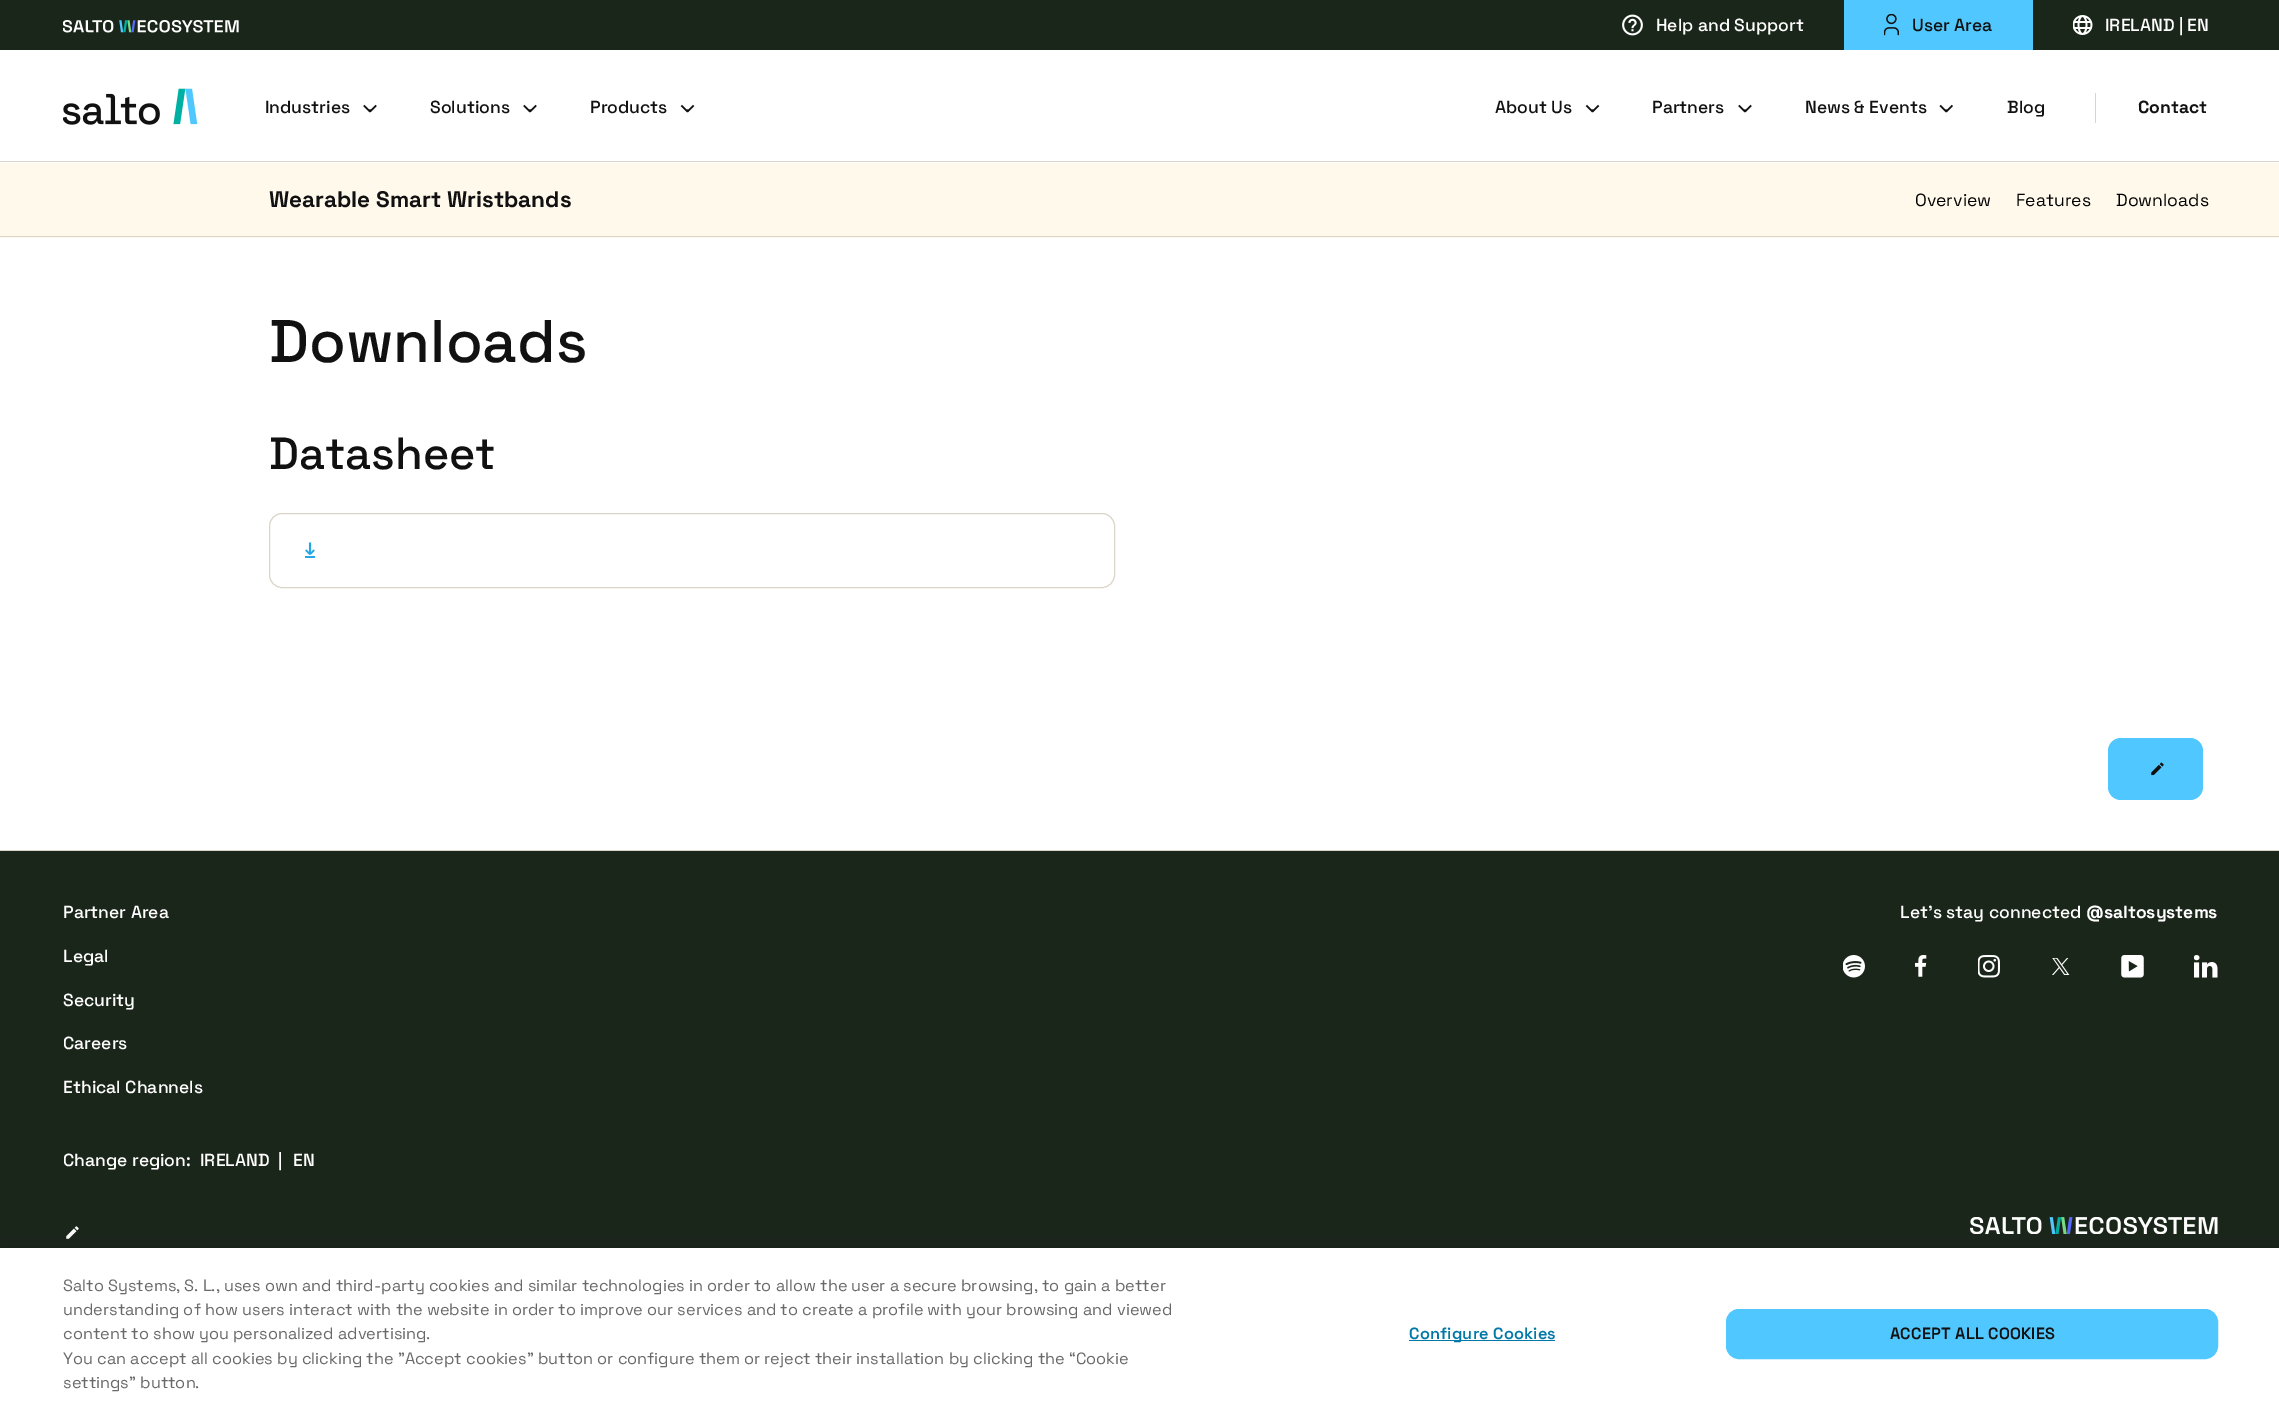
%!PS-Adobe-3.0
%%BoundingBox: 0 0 2279 1419
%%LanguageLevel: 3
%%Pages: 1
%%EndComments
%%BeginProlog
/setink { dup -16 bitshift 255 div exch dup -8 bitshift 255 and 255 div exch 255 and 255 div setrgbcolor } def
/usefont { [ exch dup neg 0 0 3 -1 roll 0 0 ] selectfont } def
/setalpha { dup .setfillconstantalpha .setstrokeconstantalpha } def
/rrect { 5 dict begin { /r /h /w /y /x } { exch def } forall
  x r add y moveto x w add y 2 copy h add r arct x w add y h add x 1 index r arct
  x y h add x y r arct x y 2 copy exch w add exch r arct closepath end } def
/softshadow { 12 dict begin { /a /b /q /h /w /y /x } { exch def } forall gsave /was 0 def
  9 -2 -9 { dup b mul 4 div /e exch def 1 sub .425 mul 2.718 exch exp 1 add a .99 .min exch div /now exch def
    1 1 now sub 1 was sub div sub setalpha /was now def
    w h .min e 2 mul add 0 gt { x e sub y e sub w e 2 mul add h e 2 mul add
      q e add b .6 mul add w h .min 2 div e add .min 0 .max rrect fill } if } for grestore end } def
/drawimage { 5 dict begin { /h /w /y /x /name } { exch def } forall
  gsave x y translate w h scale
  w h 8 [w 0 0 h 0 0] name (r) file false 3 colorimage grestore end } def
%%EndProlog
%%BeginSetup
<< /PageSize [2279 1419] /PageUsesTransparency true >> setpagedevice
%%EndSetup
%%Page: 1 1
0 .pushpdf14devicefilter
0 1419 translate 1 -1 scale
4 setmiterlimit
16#FFFFFF setink
0 0 2279 1419 rectfill
16#1B261B setink
0 0 2279 50 rectfill
(img1.raw) 63 20 176 13 drawimage
(img2.raw) 1622 14 21 22 drawimage
/SpaceGrotesk-Medium 17.5 usefont
16#FFFFFF setink
1656 31 moveto (Help and Support) show
16#50C8FF setink
1844 0 189 50 rectfill
(img3.raw) 1884 14 15 22 drawimage
16#111111 setink
1912 31 moveto (User Area) show
(img4.raw) 2073 15 20 20 drawimage
16#FFFFFF setink
2105 31 moveto (IRELAND | EN) show
16#DBD5C9 setink
0 161 2279 1 rectfill
(img5.raw) 63 88 135 37 drawimage
16#111111 setink
265 113 moveto (Industries) show
(img6.raw) 363 104 14 9 drawimage
430 113 moveto (Solutions) show
(img6.raw) 523 104 14 9 drawimage
590 113 moveto (Products) show
(img7.raw) 680 104 15 9 drawimage
1495 113 moveto (About Us) show
(img7.raw) 1585 104 15 9 drawimage
1652 113 moveto (Partners) show
(img6.raw) 1738 104 14 9 drawimage
1805 113 moveto (News & Events) show
(img8.raw) 1939 104 14 9 drawimage
2007 113 moveto (Blog) show
16#DBD5C9 setink
2095 93 1 30 rectfill
/SpaceGrotesk-Bold 17.5 usefont
16#111111 setink
2138 113 moveto (Contact) show
16#FFF9EB setink
0 163 2279 75 rectfill
16#DBD5C9 setink
0 236 2279 1 rectfill
/SpaceGrotesk-Bold 22.5 usefont
16#111111 setink
269 207 moveto (Wearable Smart Wristbands) show
/SpaceGrotesk-Regular 17.5 usefont
16#000000 setink
[
    [(Overview) 1915 206]
    [(Features) 2016 206]
    [(Downloads) 2116 206]
] { aload pop moveto show } forall
/SpaceGrotesk-Medium 60 usefont
16#111111 setink
269 362 moveto (Downloads) show
/SpaceGrotesk-Medium 45 usefont
269 469 moveto (Datasheet) show
16#DBD5C9 setink
269.5 513.5 845 74 12.5 rrect stroke
(img9.raw) 305 542 10 16 drawimage
16#50C8FF setink
2108 738 95 62 13 rrect fill
(img10.raw) 2151 762 13 14 drawimage
16#1B261B setink
0 851 2279 397 rectfill
16#DBD5C9 setink
0 850 2279 1 rectfill
/SpaceGrotesk-Medium 17.5 usefont
16#FFFFFF setink
[
    [(Partner Area) 63 918]
    [(Legal) 63 962]
    [(Security) 63 1006]
    [(Careers) 63 1049]
    [(Ethical Channels) 63 1093]
    [(Change region:) 63 1166]
    [(IRELAND) 200 1166]
    [(|) 278 1166]
    [(EN) 293 1166]
] { aload pop moveto show } forall
(img11.raw) 66 1226 13 13 drawimage
1900 918 moveto (Let's stay connected) show
/SpaceGrotesk-Bold 17.5 usefont
2086 918 moveto (@saltosystems) show
(img12.raw) 1843 955 22 23 drawimage
(img13.raw) 1915 955 12 22 drawimage
(img14.raw) 1978 955 22 23 drawimage
(img15.raw) 2052 958 18 17 drawimage
(img16.raw) 2121 955 23 23 drawimage
(img17.raw) 2194 955 24 23 drawimage
(img18.raw) 1970 1217 248 17 drawimage
16#000000 setink
0 1248 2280 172 0 11 0.2 softshadow
16#FFFFFF setink
0 1248 2279 171 rectfill
/SpaceGrotesk-Regular 16.25 usefont
16#696969 setink
[
    [(Salto Systems, S. L., uses own and third-party cookies and similar technologies in order to allow the user a secure browsing, to gain a better) 63 1291]
    [(understanding of how users interact with the website in order to improve our services and to create a profile with your browsing and viewed) 63 1315]
    [(content to show you personalized advertising.) 63 1339]
    [(You can accept all cookies by clicking the "Accept cookies" button or configure them or reject their installation by clicking the “Cookie) 63 1364]
    [(settings” button.) 63 1388]
] { aload pop moveto show } forall
16#0078A8 setink
1409 1340 146 1 rectfill
/SpaceGrotesk-SemiBold 16.25 usefont
1409 1339 moveto 0.2 0 (Configure Cookies) ashow
16#50C8FF setink
1726.5 1309.5 491 49 12.5 rrect gsave fill grestore
stroke
16#111111 setink
1890 1339 moveto 0.2 0 (ACCEPT ALL COOKIES) ashow
.poppdf14devicefilter showpage
%%EOF
